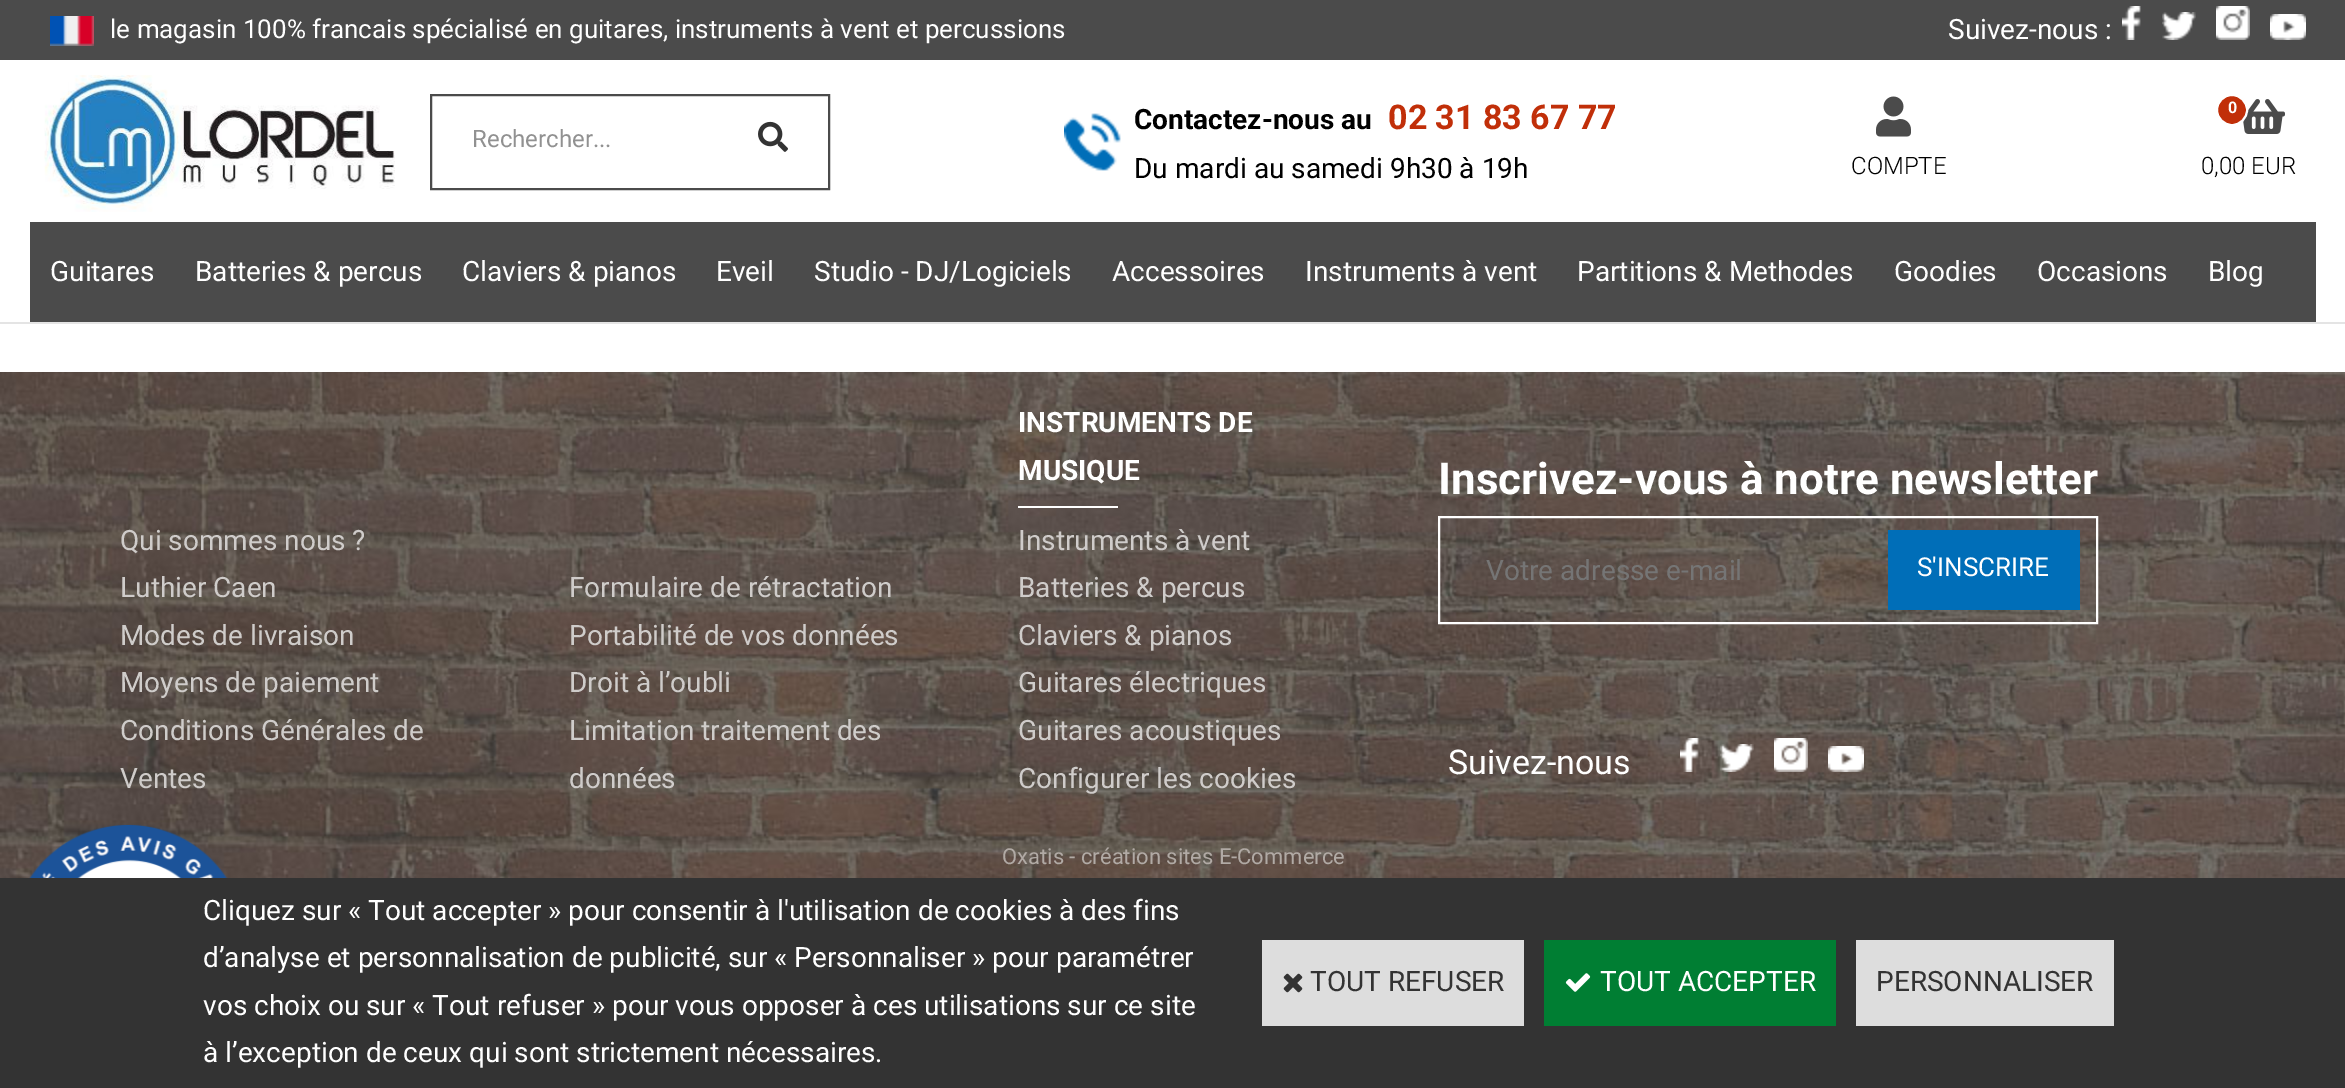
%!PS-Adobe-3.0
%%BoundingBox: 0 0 2345 1088
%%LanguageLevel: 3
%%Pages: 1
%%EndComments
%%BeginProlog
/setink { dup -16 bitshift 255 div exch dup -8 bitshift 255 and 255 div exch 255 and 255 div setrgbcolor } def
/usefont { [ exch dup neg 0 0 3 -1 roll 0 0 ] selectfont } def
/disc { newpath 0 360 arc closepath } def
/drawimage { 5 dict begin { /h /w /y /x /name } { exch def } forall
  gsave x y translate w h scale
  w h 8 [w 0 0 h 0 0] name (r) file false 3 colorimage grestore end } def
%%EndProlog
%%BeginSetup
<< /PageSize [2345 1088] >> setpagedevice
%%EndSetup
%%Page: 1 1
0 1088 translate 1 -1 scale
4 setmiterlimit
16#FFFFFF setink
0 0 2345 1088 rectfill
16#E4E4E4 setink
0 322 2345 2 rectfill
16#4B4B4B setink
0 0 2345 60 rectfill
(img1.raw) 50 16 44 30 drawimage
/Roboto-Regular 26 usefont
16#FFFFFF setink
110 38 moveto (le magasin 100% francais spécialisé en guitares, instruments à vent et percussions) show
/Roboto-Regular 28 usefont
1948 39 moveto (Suivez-nous :) show
(img2.raw) 2122 6 19 34 drawimage
(img3.raw) 2162 12 34 28 drawimage
(img4.raw) 2216 6 34 34 drawimage
(img5.raw) 2270 14 36 26 drawimage
(img6.raw) 44 75 351 137 drawimage
16#4B4B4B setink
2 setlinewidth
431 95 398 94 rectstroke
/Roboto-Regular 24 usefont
16#919191 setink
472 147 moveto (Rechercher...) show
(img7.raw) 758 121 30 31 drawimage
(img8.raw) 1064 113 57 58 drawimage
/Roboto-Bold 28 usefont
16#000000 setink
1134 129 moveto (Contactez-nous au) show
/Roboto-Bold 34 usefont
16#C12F09 setink
1388 129 moveto (02 31 83 67 77) show
/Roboto-Regular 28 usefont
16#000000 setink
1134 178 moveto (Du mardi au samedi 9h30 à 19h) show
(img9.raw) 2243 99 42 35 drawimage
16#C12F09 setink
2232 110 15 disc gsave fill grestore
16#FFFFFF setink
stroke
/Roboto-Bold 16 usefont
2228 113 moveto (0) show
/Roboto-Light 24 usefont
16#000000 setink
2201 174 moveto (0,00 EUR) show
(img10.raw) 1876 96 35 41 drawimage
1851 174 moveto (COMPTE) show
16#4B4B4B setink
30 222 2286 100 rectfill
/Roboto-Regular 28 usefont
16#FFFFFF setink
[
    [(Guitares) 50 281]
    [(Batteries & percus) 195 281]
    [(Claviers & pianos) 462 281]
    [(Eveil) 716 281]
    [(Studio - DJ/Logiciels) 814 281]
    [(Accessoires) 1112 281]
    [(Instruments à vent) 1305 281]
    [(Partitions & Methodes) 1577 281]
    [(Goodies) 1894 281]
    [(Occasions) 2037 281]
    [(Blog) 2208 281]
] { aload pop moveto show } forall
(img11.raw) 0 372 2345 506 drawimage
16#CFCCCA setink
[
    [(Qui sommes nous ?) 120 550]
    [(Luthier Caen) 120 597]
    [(Modes de livraison) 120 645]
    [(Moyens de paiement) 120 692]
    [(Conditions Générales de) 120 740]
    [(Ventes) 120 788]
    [(Formulaire de rétractation) 569 597]
    [(Portabilité de vos données) 569 645]
    [(Droit à l’oubli) 569 692]
    [(Limitation traitement des) 569 740]
    [(données) 569 788]
] { aload pop moveto show } forall
/Roboto-Bold 28 usefont
16#FFFFFF setink
1018 432 moveto (INSTRUMENTS DE) show
1018 480 moveto (MUSIQUE) show
1018 506 100 2 rectfill
/Roboto-Regular 28 usefont
16#CFCCCA setink
[
    [(Instruments à vent) 1018 550]
    [(Batteries & percus) 1018 597]
    [(Claviers & pianos) 1018 645]
    [(Guitares électriques) 1018 692]
    [(Guitares acoustiques) 1018 740]
    [(Configurer les cookies) 1018 788]
] { aload pop moveto show } forall
/Roboto-Bold 44 usefont
16#FFFFFF setink
1438 494 moveto (Inscrivez-vous à notre newsletter) show
1439 517 658 106 rectstroke
/Roboto-Regular 28 usefont
16#757575 setink
1486 580 moveto (Votre adresse e-mail) show
16#006EB8 setink
1888 530 192 80 rectfill
/Roboto-Regular 26 usefont
16#FFFFFF setink
1917 576 moveto (S'INSCRIRE) show
/Roboto-Regular 34 usefont
1448 774 moveto (Suivez-nous) show
(img12.raw) 1680 738 19 34 drawimage
(img13.raw) 1720 744 34 28 drawimage
(img14.raw) 1774 738 34 34 drawimage
(img15.raw) 1828 746 36 26 drawimage
/Roboto-Regular 22 usefont
16#B1AAA5 setink
1002 864 moveto (Oxatis - création sites E-Commerce) show
16#333333 setink
0 878 2345 210 rectfill
/Roboto-Regular 28 usefont
16#FFFFFF setink
[
    [(Cliquez sur « Tout accepter » pour consentir à l'utilisation de cookies à des fins) 203 920]
    [(d’analyse et personnalisation de publicité, sur « Personnaliser » pour paramétrer) 203 967]
    [(vos choix ou sur « Tout refuser » pour vous opposer à ces utilisations sur ce site) 203 1015]
    [(à l’exception de ceux qui sont strictement nécessaires.) 203 1062]
] { aload pop moveto show } forall
16#DDDDDD setink
1262 940 262 86 rectfill
(img16.raw) 1283 973 20 20 drawimage
16#333333 setink
1310 991 moveto (TOUT REFUSER) show
16#007E33 setink
1544 940 292 86 rectfill
(img17.raw) 1565 973 26 19 drawimage
16#FFFFFF setink
1600 991 moveto (TOUT ACCEPTER) show
16#DDDDDD setink
1856 940 258 86 rectfill
16#333333 setink
1876 991 moveto (PERSONNALISER) show
(img18.raw) 29 824 199 54 drawimage
showpage
%%EOF
